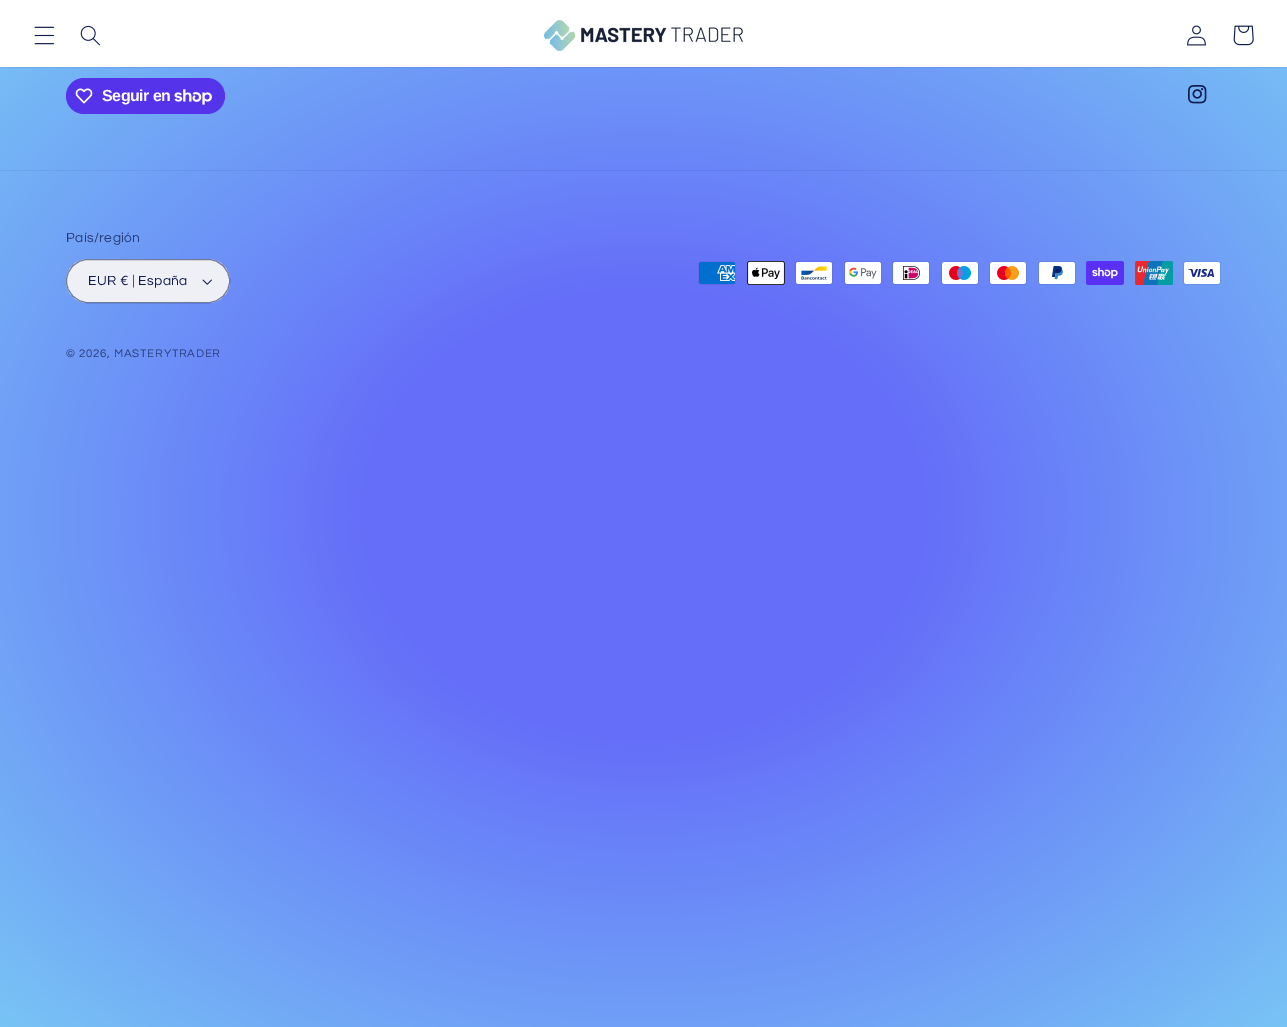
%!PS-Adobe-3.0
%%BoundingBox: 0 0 1287 1027
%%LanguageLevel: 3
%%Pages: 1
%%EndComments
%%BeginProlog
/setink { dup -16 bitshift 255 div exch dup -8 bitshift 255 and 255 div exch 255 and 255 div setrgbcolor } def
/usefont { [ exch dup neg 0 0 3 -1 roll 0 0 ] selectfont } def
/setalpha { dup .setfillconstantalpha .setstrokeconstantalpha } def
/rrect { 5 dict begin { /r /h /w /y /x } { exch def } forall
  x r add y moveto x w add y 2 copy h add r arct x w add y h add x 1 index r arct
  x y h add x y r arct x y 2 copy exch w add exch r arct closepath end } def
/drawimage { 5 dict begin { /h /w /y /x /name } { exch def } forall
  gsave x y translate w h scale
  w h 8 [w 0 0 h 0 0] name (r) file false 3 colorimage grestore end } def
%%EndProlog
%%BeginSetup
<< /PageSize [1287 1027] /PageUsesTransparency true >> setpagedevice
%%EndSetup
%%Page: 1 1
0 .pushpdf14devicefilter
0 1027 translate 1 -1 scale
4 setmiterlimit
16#FFFFFF setink
0 0 1287 1027 rectfill
gsave 0 68 moveto 1287 68 lineto 1287 1027 lineto 0 1027 lineto closepath clip newpath 644 514 translate 910 726 scale
<< /ShadingType 3 /ColorSpace /DeviceRGB /Coords [0 0 0 0 0 1] /Extend [true true] /Function << /FunctionType 3 /Domain [0 1] /Functions [<< /FunctionType 2 /Domain [0 1] /C0 [0.396 0.431 0.976] /C1 [0.396 0.431 0.976] /N 1 >> << /FunctionType 2 /Domain [0 1] /C0 [0.396 0.431 0.976] /C1 [0.471 0.769 0.961] /N 1 >>] /Bounds [0.3] /Encode [0 1 0 1] >> >> shfill grestore
gsave 0 170 moveto 1287 170 lineto 1287 171 lineto 0 171 lineto closepath clip newpath 644 514 translate 910 726 scale
<< /ShadingType 3 /ColorSpace /DeviceRGB /Coords [0 0 0 0 0 1] /Extend [true true] /Function << /FunctionType 3 /Domain [0 1] /Functions [<< /FunctionType 2 /Domain [0 1] /C0 [0.369 0.404 0.922] /C1 [0.369 0.404 0.922] /N 1 >> << /FunctionType 2 /Domain [0 1] /C0 [0.369 0.404 0.922] /C1 [0.439 0.714 0.91] /N 1 >>] /Bounds [0.3] /Encode [0 1 0 1] >> >> shfill grestore
gsave 0 67 moveto 1287 67 lineto 1287 68 lineto 0 68 lineto closepath clip newpath 644 514 translate 910 726 scale
<< /ShadingType 3 /ColorSpace /DeviceRGB /Coords [0 0 0 0 0 1] /Extend [true true] /Function << /FunctionType 3 /Domain [0 1] /Functions [<< /FunctionType 2 /Domain [0 1] /C0 [0.369 0.404 0.922] /C1 [0.369 0.404 0.922] /N 1 >> << /FunctionType 2 /Domain [0 1] /C0 [0.369 0.404 0.922] /C1 [0.439 0.714 0.91] /N 1 >>] /Bounds [0.3] /Encode [0 1 0 1] >> >> shfill grestore
(img1.raw) 34 26 20 19 drawimage
(img2.raw) 80 25 20 21 drawimage
(img3.raw) 544 20 199 31 drawimage
(img4.raw) 1187 25 19 21 drawimage
(img5.raw) 1233 25 21 21 drawimage
16#5433EB setink
66 78 159 36 18 rrect fill
(img6.raw) 75 88 18 16 drawimage
/LiberationSans-Bold 16 usefont
16#FFFFFF setink
102 101 moveto -0.5 0 (Seguir en) ashow
(img7.raw) 174 89 38 16 drawimage
(img8.raw) 1188 85 19 19 drawimage
/Questrial-Regular 13.75 usefont
16#263B78 setink
66 242 moveto 0.4 0 (País/región) ashow
16#EFF0F5 setink
66 259 164 44 22 rrect fill
(img9.raw) 202 279 10 6 drawimage
0.55 setalpha
16#0E1B4D setink
66.5 259.5 163 43 21.5 rrect stroke
1 setalpha
88 285 moveto 0.4 0 (EUR € | España) ashow
(img10.raw) 698 261 38 24 drawimage
(img11.raw) 747 261 38 24 drawimage
(img12.raw) 795 261 38 24 drawimage
(img13.raw) 844 261 38 24 drawimage
(img14.raw) 892 261 38 24 drawimage
(img15.raw) 941 261 38 24 drawimage
(img16.raw) 989 261 38 24 drawimage
(img17.raw) 1038 261 38 24 drawimage
(img18.raw) 1086 261 38 24 drawimage
(img19.raw) 1135 261 38 24 drawimage
(img20.raw) 1183 261 38 24 drawimage
/Questrial-Regular 11.5 usefont
16#263B78 setink
66 357 moveto 0.75 0 (© 2026,) ashow
114 357 moveto 0.75 0 (MASTERYTRADER) ashow
.poppdf14devicefilter showpage
%%EOF
